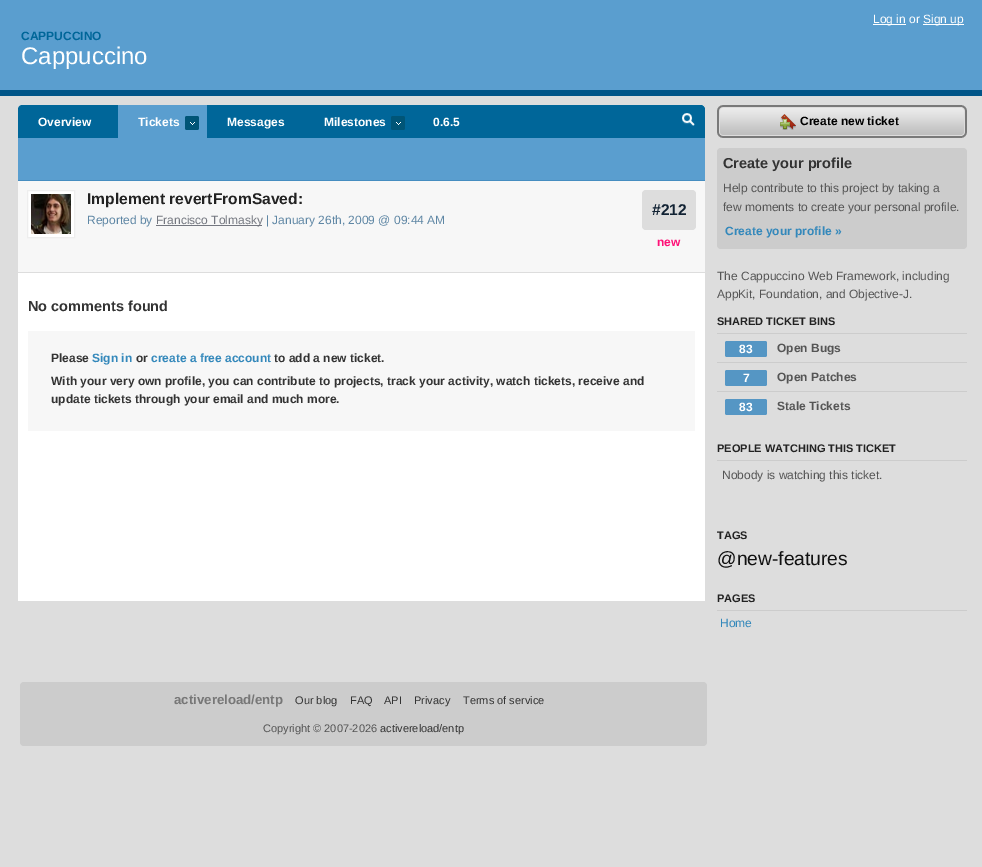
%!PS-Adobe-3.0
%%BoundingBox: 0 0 982 867
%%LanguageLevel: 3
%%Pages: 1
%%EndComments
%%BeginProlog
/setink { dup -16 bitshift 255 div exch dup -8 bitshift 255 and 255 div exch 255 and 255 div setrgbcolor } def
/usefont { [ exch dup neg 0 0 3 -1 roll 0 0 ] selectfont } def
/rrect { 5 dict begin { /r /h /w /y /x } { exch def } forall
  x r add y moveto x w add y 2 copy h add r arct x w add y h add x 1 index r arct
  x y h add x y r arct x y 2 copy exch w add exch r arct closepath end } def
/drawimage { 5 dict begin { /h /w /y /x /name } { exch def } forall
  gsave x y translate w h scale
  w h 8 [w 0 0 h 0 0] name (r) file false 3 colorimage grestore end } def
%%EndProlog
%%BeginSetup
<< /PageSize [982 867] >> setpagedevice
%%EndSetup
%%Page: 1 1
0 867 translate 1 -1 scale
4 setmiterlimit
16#DDDDDD setink
0 0 982 867 rectfill
[
    [0 0 982 90 16#5A9ECF]
    [0 90 982 6 16#005588]
    [873 24 33 1 16#FFFFFF]
] { aload pop setink rectfill } forall
/LiberationSans-Regular 12 usefont
873 23 moveto (Log in or) show
923 24 41 1 rectfill
923 23 moveto (Sign up) show
/LiberationSans-Bold 12 usefont
16#006699 setink
21 40 moveto (CAPPUCCINO) show
/LiberationSans-Regular 24 usefont
16#FFFFFF setink
21 64 moveto (Cappuccino) show
22 105 moveto 701 105 lineto 703 105 705 107 705 109 curveto 705 601 lineto 18 601 lineto 18 109 lineto 18 107 20 105 22 105 curveto closepath fill
16#006699 setink
22 105 moveto 701 105 lineto 703 105 705 107 705 109 curveto 705 138 lineto 18 138 lineto 18 109 lineto 18 107 20 105 22 105 curveto closepath fill
/LiberationSans-Bold 12 usefont
16#FFFFFF setink
38 126 moveto (Overview) show
16#5A9ECF setink
118 105 89 33 rectfill
16#FFFFFF setink
138 126 moveto (Tickets) show
16#005577 setink
185 116 14 14 2 rrect fill
(img1.raw) 190 122 5 3 drawimage
16#FFFFFF setink
227 126 moveto (Messages) show
324 126 moveto (Milestones) show
16#005577 setink
391 116 14 14 2 rrect fill
(img1.raw) 396 122 5 3 drawimage
16#FFFFFF setink
433 126 moveto (0.6.5) show
(img2.raw) 703 105 2 2 drawimage
(img3.raw) 682 113 13 13 drawimage
[
    [18 138 687 42 16#5A9ECF]
    [18 180 687 1 16#468DC0]
    [18 181 687 91 16#F7F7F7]
    [18 272 687 1 16#DDDDDD]
] { aload pop setink rectfill } forall
16#FFFFFF setink
27.5 190.5 moveto 74.5 190.5 lineto 74.5 237.5 lineto 27.5 237.5 lineto closepath gsave fill grestore
16#EEEEEE setink
stroke
(img4.raw) 31 194 40 40 drawimage
/LiberationSans-Bold 15.6 usefont
16#222222 setink
87 204 moveto (Implement revertFromSaved:) show
/LiberationSans-Regular 12 usefont
16#5F87A5 setink
87 224 moveto (Reported by) show
16#747780 setink
156 225 106 1 rectfill
156 224 moveto (Francisco Tolmasky) show
16#5F87A5 setink
266 224 moveto (| January 26th, 2009 @ 09:44 AM) show
16#DDDDDD setink
642 190 54 40 4 rrect fill
/LiberationSans-Bold 15.6 usefont
16#112233 setink
652 215 moveto (#212) show
/LiberationSans-Bold 12 usefont
16#FF1177 setink
657 246 moveto (new) show
/LiberationSans-Bold 14.5 usefont
16#333333 setink
28 311 moveto (No comments found) show
16#F7F7F7 setink
28 331 667 100 rectfill
/LiberationSans-Bold 12 usefont
16#333333 setink
51 362 moveto (Please) show
16#3388BB setink
92 362 moveto (Sign in) show
16#333333 setink
136 362 moveto (or) show
16#3388BB setink
151 362 moveto (create a free account) show
16#333333 setink
[
    [(to add a new ticket.) 274 362]
    [(With your very own profile, you can contribute to projects, track your activity, watch tickets, receive and) 51 385]
    [(update tickets through your email and much more.) 51 403]
] { aload pop moveto show } forall
(img5.raw) 962 105 5 33 drawimage
(img6.raw) 717 105 245 33 drawimage
(img7.raw) 780 114 16 16 drawimage
16#000000 setink
800 125 moveto (Create new ticket) show
16#CCCCCC setink
717 148 250 101 4 rrect fill
/LiberationSans-Bold 14.5 usefont
16#333333 setink
723 168 moveto (Create your profile) show
/LiberationSans-Regular 12 usefont
16#555555 setink
723 192 moveto (Help contribute to this project by taking a) show
723 211 moveto (few moments to create your personal profile.) show
/LiberationSans-Bold 12 usefont
16#3388BB setink
725 235 moveto (Create your profile ») show
/LiberationSans-Regular 12 usefont
16#555555 setink
717 280 moveto (The Cappuccino Web Framework, including) show
717 298 moveto (AppKit, Foundation, and Objective-J.) show
/LiberationSans-Bold 11 usefont
16#222222 setink
717 325 moveto (SHARED TICKET BINS) show
16#CCCCCC setink
717 333 250 1 rectfill
16#5596C4 setink
725 341 42 16 2 rrect fill
/LiberationSans-Bold 12 usefont
16#FFFFFF setink
739 353 moveto (83) show
16#555555 setink
777 352 moveto (Open Bugs) show
16#CCCCCC setink
717 362 250 1 rectfill
16#5596C4 setink
725 370 42 16 2 rrect fill
16#FFFFFF setink
743 382 moveto (7) show
16#555555 setink
777 381 moveto (Open Patches) show
16#CCCCCC setink
717 391 250 1 rectfill
16#5596C4 setink
725 399 42 16 2 rrect fill
16#FFFFFF setink
739 411 moveto (83) show
16#555555 setink
777 410 moveto (Stale Tickets) show
/LiberationSans-Bold 11 usefont
16#222222 setink
717 452 moveto (PEOPLE WATCHING THIS TICKET) show
16#CCCCCC setink
717 460 250 1 rectfill
/LiberationSans-Regular 12 usefont
16#555555 setink
722 479 moveto (Nobody is watching this ticket.) show
/LiberationSans-Bold 11 usefont
16#222222 setink
717 539 moveto (TAGS) show
/LiberationSans-Regular 19.25 usefont
16#111111 setink
717 565 moveto (@new-features) show
/LiberationSans-Bold 11 usefont
16#222222 setink
717 602 moveto (PAGES) show
16#CCCCCC setink
717 610 250 1 rectfill
/LiberationSans-Regular 12 usefont
16#3388BB setink
720 627 moveto (Home) show
16#CCCCCC setink
20 682 687 64 4 rrect fill
/LiberationSans-Bold 13.25 usefont
16#777777 setink
174 704 moveto (activereload/entp) show
/LiberationSans-Regular 11 usefont
16#333333 setink
[
    [(Our blog) 295 704]
    [(FAQ) 350 704]
    [(API) 384 704]
    [(Privacy) 414 704]
    [(Terms of service) 463 704]
] { aload pop moveto show } forall
16#555555 setink
263 732 moveto (Copyright © 2007-2026) show
16#333333 setink
380 732 moveto (activereload/entp) show
showpage
%%EOF
